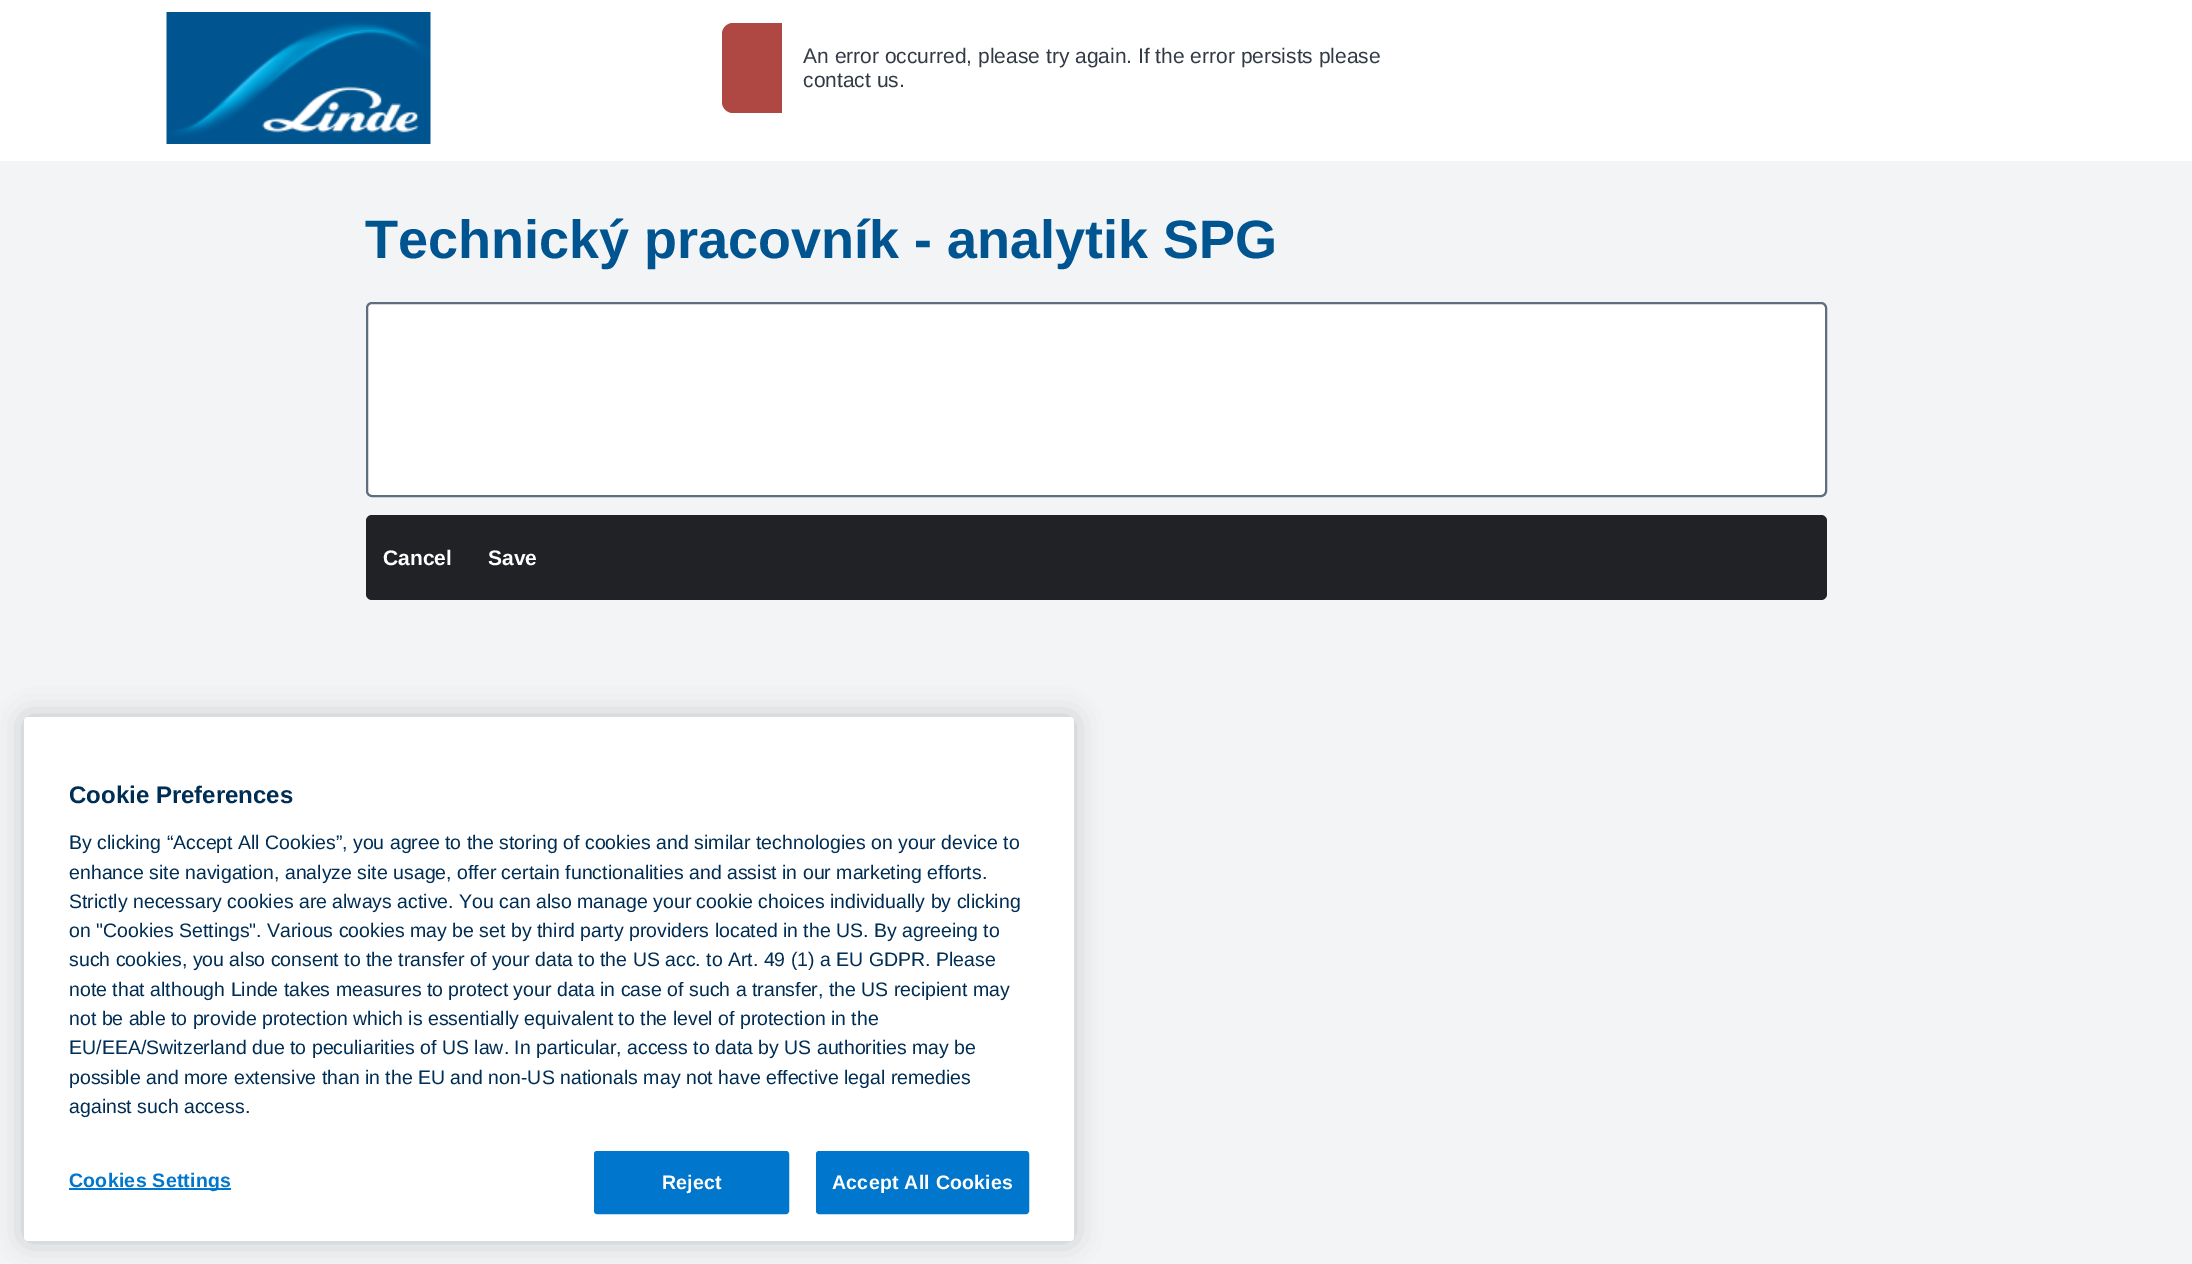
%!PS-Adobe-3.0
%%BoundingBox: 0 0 2192 1264
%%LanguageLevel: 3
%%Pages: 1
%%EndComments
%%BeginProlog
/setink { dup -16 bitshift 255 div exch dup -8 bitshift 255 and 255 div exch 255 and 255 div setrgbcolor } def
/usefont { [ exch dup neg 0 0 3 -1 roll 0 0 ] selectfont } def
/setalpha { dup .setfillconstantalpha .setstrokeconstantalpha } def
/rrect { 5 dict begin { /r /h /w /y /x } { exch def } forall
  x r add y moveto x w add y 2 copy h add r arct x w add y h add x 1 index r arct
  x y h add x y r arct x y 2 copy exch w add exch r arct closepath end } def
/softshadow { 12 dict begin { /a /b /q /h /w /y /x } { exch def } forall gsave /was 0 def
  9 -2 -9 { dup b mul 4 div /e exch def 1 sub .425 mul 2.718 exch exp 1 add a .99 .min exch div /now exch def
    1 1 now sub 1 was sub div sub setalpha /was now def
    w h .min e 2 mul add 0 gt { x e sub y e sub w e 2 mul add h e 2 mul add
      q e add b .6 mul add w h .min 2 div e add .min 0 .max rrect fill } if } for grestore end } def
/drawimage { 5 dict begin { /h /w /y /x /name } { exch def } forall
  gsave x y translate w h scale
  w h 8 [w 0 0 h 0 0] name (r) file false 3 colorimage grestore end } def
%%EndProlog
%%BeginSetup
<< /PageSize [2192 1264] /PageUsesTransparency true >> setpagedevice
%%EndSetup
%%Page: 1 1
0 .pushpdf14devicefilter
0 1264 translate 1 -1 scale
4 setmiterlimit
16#F3F4F6 setink
0 0 2192 1264 rectfill
16#FFFFFF setink
0 0 2192 161 rectfill
16#AF4743 setink
733 23 moveto 782 23 lineto 782 113 lineto 733 113 lineto 727 113 722 108 722 102 curveto 722 34 lineto 722 28 727 23 733 23 curveto closepath fill
/LiberationSans-Regular 21 usefont
16#323A45 setink
803 63 moveto (An error occurred, please try again. If the error persists please) show
803 87 moveto (contact us.) show
(img1.raw) 166 12 265 132 drawimage
/LiberationSans-Bold 54 usefont
16#005591 setink
365 258 moveto (Technický pracovník - analytik SPG) show
16#FFFFFF setink
367 303 1459 193 5 rrect gsave fill grestore
16#5E6D80 setink
2 setlinewidth
stroke
16#212226 setink
366 515 1461 85 6 rrect fill
/LiberationSans-Bold 21 usefont
16#FFFFFF setink
383 565 moveto (Cancel) show
488 565 moveto (Save) show
16#000000 setink
24 717 1050 524 4 13.5 0.2 softshadow
16#FFFFFF setink
24 717 1050 524 4 rrect fill
/LiberationSans-Bold 24 usefont
16#002D54 setink
69 803 moveto (Cookie Preferences) show
/LiberationSans-Regular 19.5 usefont
[
    [(By clicking “Accept All Cookies”, you agree to the storing of cookies and similar technologies on your device to) 69 849]
    [(enhance site navigation, analyze site usage, offer certain functionalities and assist in our marketing efforts.) 69 879]
    [(Strictly necessary cookies are always active. You can also manage your cookie choices individually by clicking) 69 908]
    [(on "Cookies Settings". Various cookies may be set by third party providers located in the US. By agreeing to) 69 937]
    [(such cookies, you also consent to the transfer of your data to the US acc. to Art. 49 \(1\) a EU GDPR. Please) 69 966]
    [(note that although Linde takes measures to protect your data in case of such a transfer, the US recipient may) 69 996]
    [(not be able to provide protection which is essentially equivalent to the level of protection in the) 69 1025]
    [(EU/EEA/Switzerland due to peculiarities of US law. In particular, access to data by US authorities may be) 69 1054]
    [(possible and more extensive than in the EU and non-US nationals may not have effective legal remedies) 69 1084]
    [(against such access.) 69 1113]
] { aload pop moveto show } forall
16#0077CC setink
69 1188 162 2 rectfill
/LiberationSans-Bold 19.5 usefont
69 1187 moveto 0.25 0 (Cookies Settings) ashow
595 1152 193 61 2 rrect gsave fill grestore
stroke
16#FFFFFF setink
662 1189 moveto 0.25 0 (Reject) ashow
16#0077CC setink
817 1152 211 61 2 rrect gsave fill grestore
stroke
16#FFFFFF setink
832 1189 moveto 0.25 0 (Accept All Cookies) ashow
.poppdf14devicefilter showpage
%%EOF
